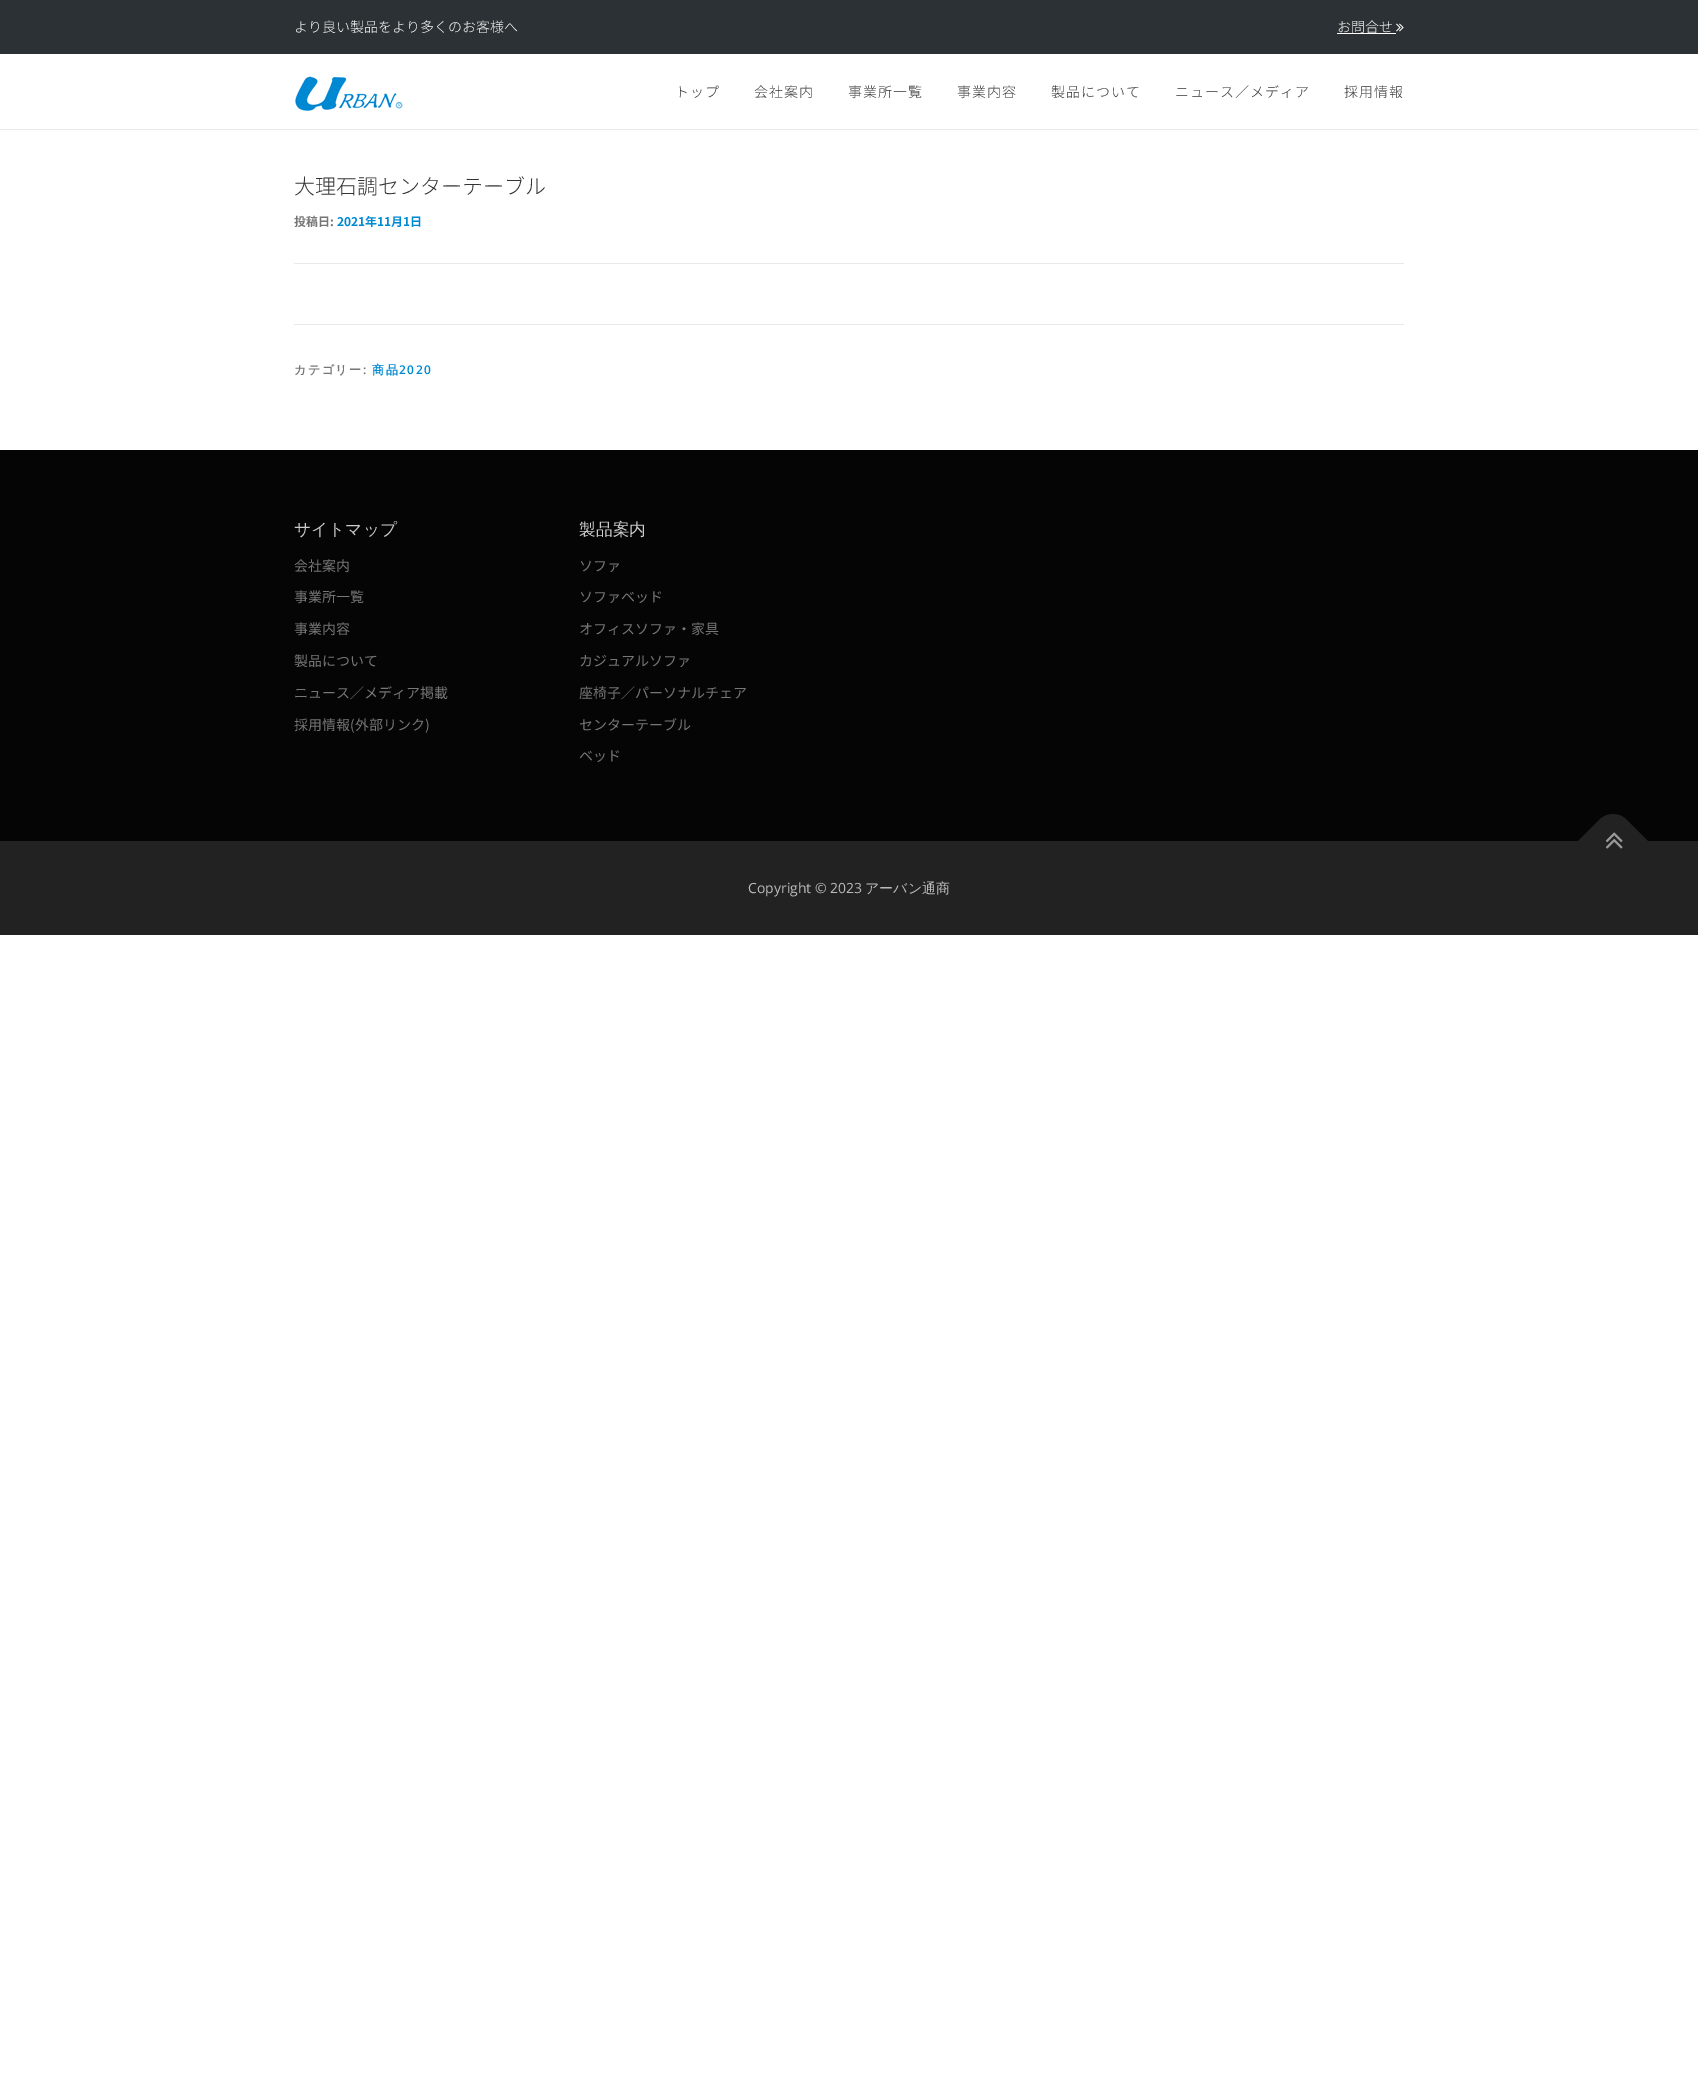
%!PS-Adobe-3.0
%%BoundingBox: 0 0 1698 2076
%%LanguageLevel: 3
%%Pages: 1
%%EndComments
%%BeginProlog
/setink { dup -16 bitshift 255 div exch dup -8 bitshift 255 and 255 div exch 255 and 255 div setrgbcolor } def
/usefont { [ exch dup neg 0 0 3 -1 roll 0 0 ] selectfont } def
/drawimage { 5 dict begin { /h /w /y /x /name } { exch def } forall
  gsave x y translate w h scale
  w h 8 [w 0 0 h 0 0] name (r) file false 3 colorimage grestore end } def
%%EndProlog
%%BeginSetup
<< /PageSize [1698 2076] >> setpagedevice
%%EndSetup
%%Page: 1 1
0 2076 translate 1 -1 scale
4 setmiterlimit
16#FFFFFF setink
0 0 1698 2076 rectfill
16#2B3134 setink
0 0 1698 54 rectfill
/NotoSansJP-Light 14 usefont
16#FFFFFF setink
294 32 moveto (より良い製品をより多くのお客様へ) show
1337 33 59 1 rectfill
1337 32 moveto (お問合せ) show
(img1.raw) 1396 23 8 9 drawimage
(img2.raw) 295 76 108 35 drawimage
16#333333 setink
675 97 moveto 1 0 (トップ) ashow
754 97 moveto 1 0 (会社案内) ashow
848 97 moveto 1 0 (事業所一覧) ashow
957 97 moveto 1 0 (事業内容) ashow
1051 97 moveto 1 0 (製品について) ashow
1175 97 moveto 1 0 (ニュース／メディア) ashow
1344 97 moveto 1 0 (採用情報) ashow
16#E9E9E9 setink
0 129 1698 1 rectfill
/NotoSansJP-Light 21 usefont
16#333333 setink
294 194 moveto (大理石調センターテーブル) show
16#E9E9E9 setink
294 263 1110 1 rectfill
/NotoSansJP-Bold 12 usefont
16#777777 setink
294 226 moveto (投稿日:) show
16#0089D3 setink
337 226 moveto (2021年11月1日) show
16#E9E9E9 setink
294 324 1110 1 rectfill
/WenQuanYiZenHei-Bold 12 usefont
16#777777 setink
294 374 moveto 1.5 0 (カテゴリー) ashow
/OpenSans-SemiBold 12 usefont
363 374 moveto 1.5 0 (:) ashow
/WenQuanYiZenHei-Bold 12 usefont
16#0089D3 setink
372 374 moveto 1.5 0 (商品) ashow
/OpenSans-SemiBold 12 usefont
399 374 moveto 1.5 0 (2020) ashow
16#050505 setink
0 450 1698 391 rectfill
/WenQuanYiZenHei-Medium 16.75 usefont
16#CCCCCC setink
294 535 moveto (サイトマップ) show
/NotoSansJP-Regular 14 usefont
16#777777 setink
[
    [(会社案内) 294 571]
    [(事業所一覧) 294 602]
    [(事業内容) 294 634]
    [(製品について) 294 666]
    [(ニュース／メディア掲載) 294 698]
    [(採用情報\(外部リンク\)) 294 730]
] { aload pop moveto show } forall
/WenQuanYiZenHei-Medium 16.75 usefont
16#CCCCCC setink
579 535 moveto (製品案内) show
/NotoSansJP-Regular 14 usefont
16#777777 setink
[
    [(ソファ) 579 571]
    [(ソファベッド) 579 602]
    [(オフィスソファ・家具) 579 634]
    [(カジュアルソファ) 579 666]
    [(座椅子／パーソナルチェア) 579 698]
    [(センターテーブル) 579 730]
    [(ベッド) 579 761]
] { aload pop moveto show } forall
16#222222 setink
0 841 1698 94 rectfill
1578 841 moveto 1599 820 lineto 1607 812 1619 812 1627 820 curveto 1648 841 lineto 1613 876 lineto closepath fill
(img3.raw) 1605 832 18 17 drawimage
/OpenSans-Regular 14 usefont
16#BBBBBB setink
748 893 moveto (Copyright © 2023) show
/WenQuanYiZenHei-Medium 14 usefont
865 893 moveto (アーバン通商) show
showpage
%%EOF
